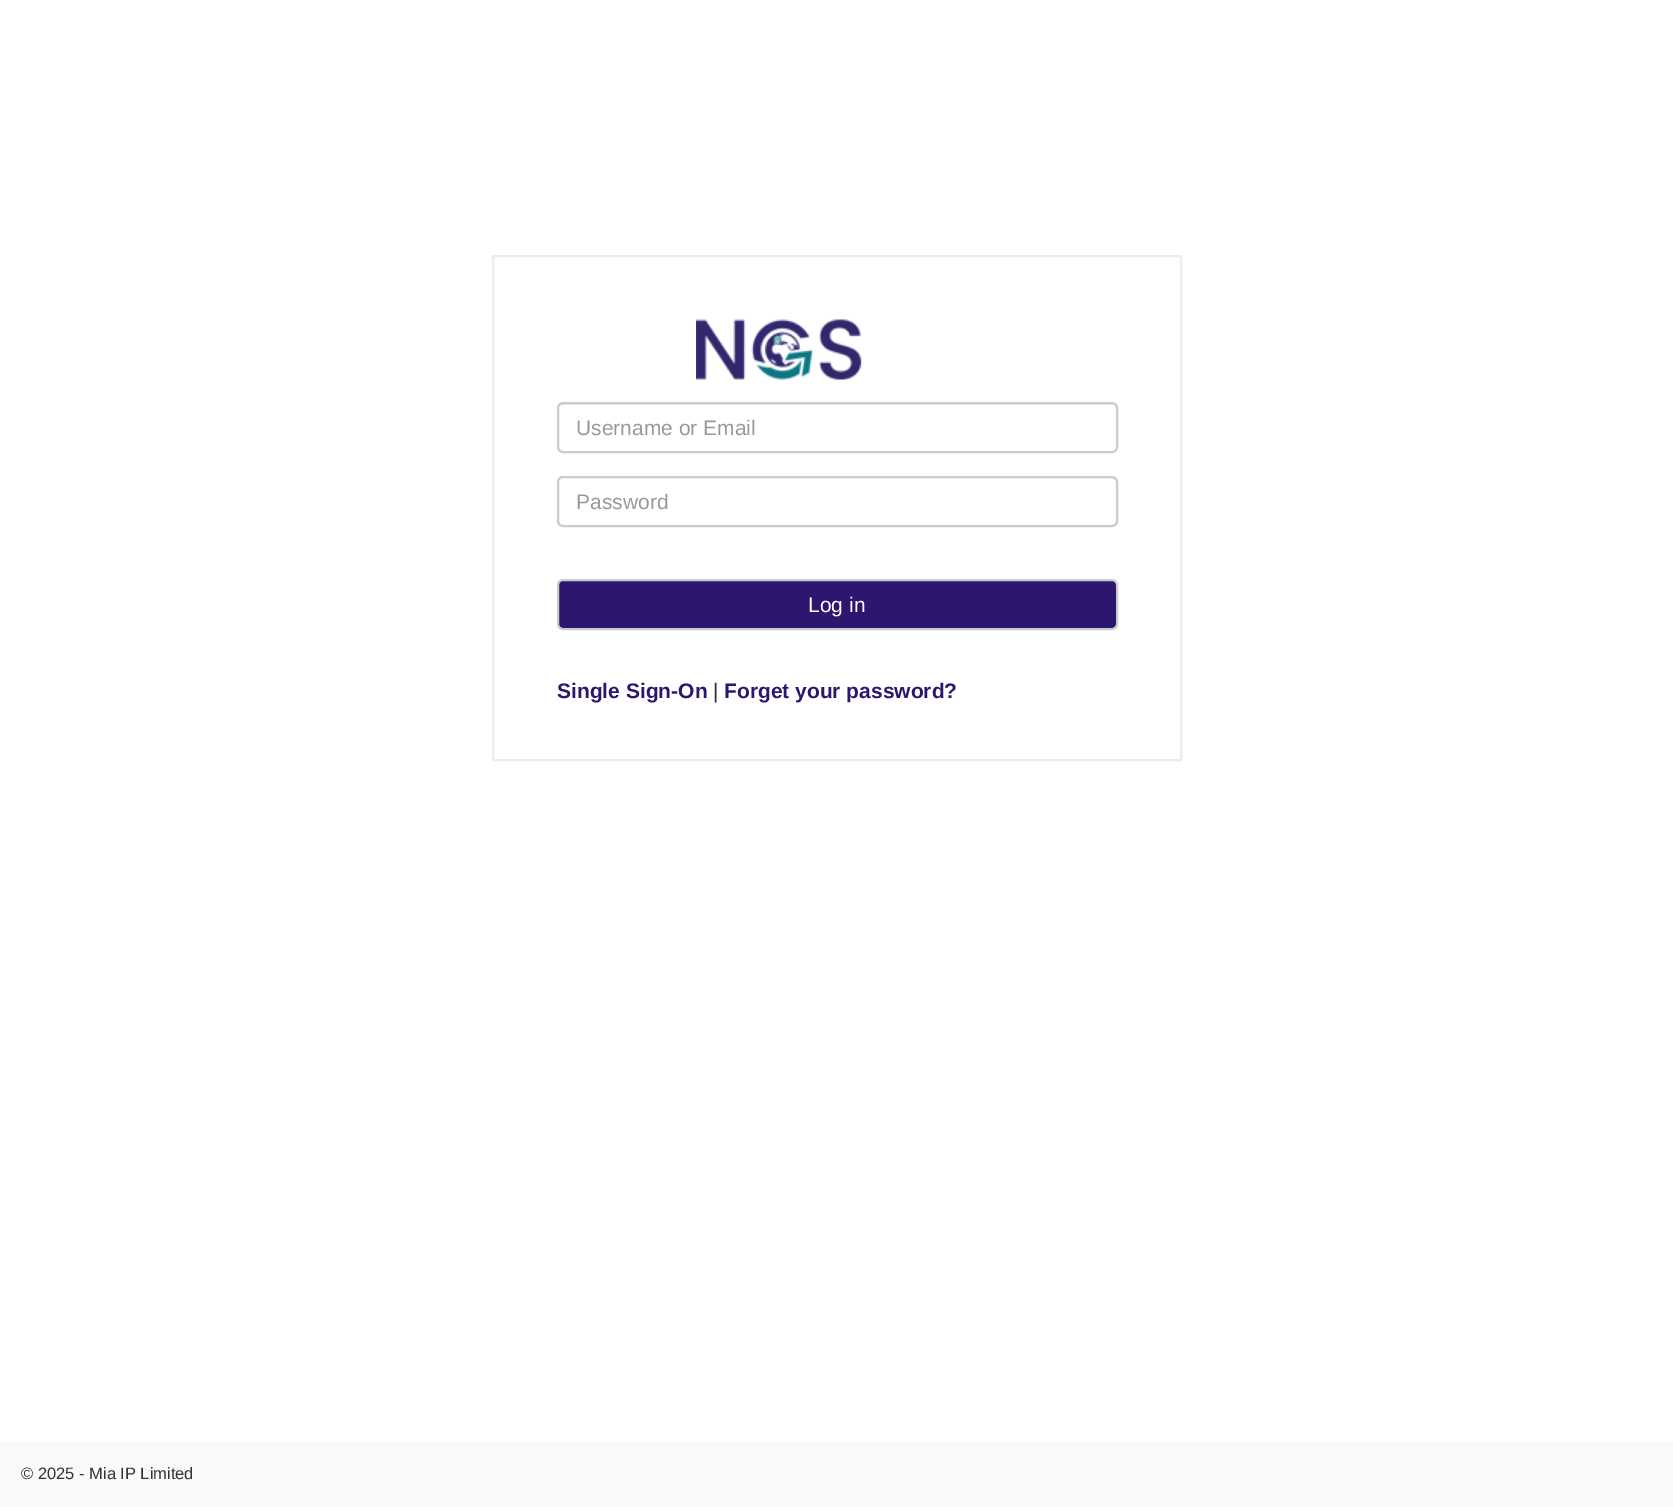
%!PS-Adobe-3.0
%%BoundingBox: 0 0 1673 1507
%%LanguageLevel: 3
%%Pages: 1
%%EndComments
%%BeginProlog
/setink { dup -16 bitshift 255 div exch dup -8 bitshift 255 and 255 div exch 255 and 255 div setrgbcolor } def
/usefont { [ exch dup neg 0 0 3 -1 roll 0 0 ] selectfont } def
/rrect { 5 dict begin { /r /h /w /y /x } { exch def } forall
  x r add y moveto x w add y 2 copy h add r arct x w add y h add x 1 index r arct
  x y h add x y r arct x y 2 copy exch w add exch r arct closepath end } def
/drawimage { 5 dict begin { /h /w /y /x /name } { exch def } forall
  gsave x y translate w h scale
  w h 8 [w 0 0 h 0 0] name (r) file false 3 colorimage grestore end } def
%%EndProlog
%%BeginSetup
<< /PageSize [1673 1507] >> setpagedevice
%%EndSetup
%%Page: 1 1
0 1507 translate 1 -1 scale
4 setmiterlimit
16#FFFFFF setink
0 0 1673 1507 rectfill
16#EAECED setink
2 setlinewidth
493 256 688 504 rectstroke
(img1.raw) 696 319 166 61 drawimage
16#ECECEC setink
562 405 moveto 1112 405 lineto 1114 405 1116 407 1116 410 curveto 1116 407 1114 404 1111 404 curveto 563 404 lineto 560 404 558 407 558 410 curveto 558 407 560 405 562 405 curveto closepath fill
16#CCCCCC setink
558 403 559 49 5 rrect stroke
/LiberationSans-Regular 21 usefont
16#999999 setink
576 435 moveto (Username or Email) show
16#ECECEC setink
562 478 moveto 1112 478 lineto 1114 478 1116 481 1116 483 curveto 1116 480 1114 477 1111 477 curveto 563 477 lineto 560 477 558 480 558 483 curveto 558 481 560 478 562 478 curveto closepath fill
16#CCCCCC setink
558 477 559 49 5 rrect stroke
16#999999 setink
576 509 moveto (Password) show
16#2D166F setink
558 580 559 49 5 rrect gsave fill grestore
16#CCCCCC setink
stroke
16#FFFFFF setink
808 612 moveto (Log in) show
/LiberationSans-Bold 21 usefont
16#2D166F setink
557 698 moveto (Single Sign-On) show
/LiberationSans-Regular 21 usefont
16#333333 setink
713 698 moveto (|) show
/LiberationSans-Bold 21 usefont
16#2D166F setink
724 698 moveto (Forget your password?) show
16#F7F9FA setink
0 1442 1673 65 rectfill
/LiberationSans-Regular 16.5 usefont
16#333333 setink
21 1479 moveto (© 2025 - Mia IP Limited) show
showpage
%%EOF
